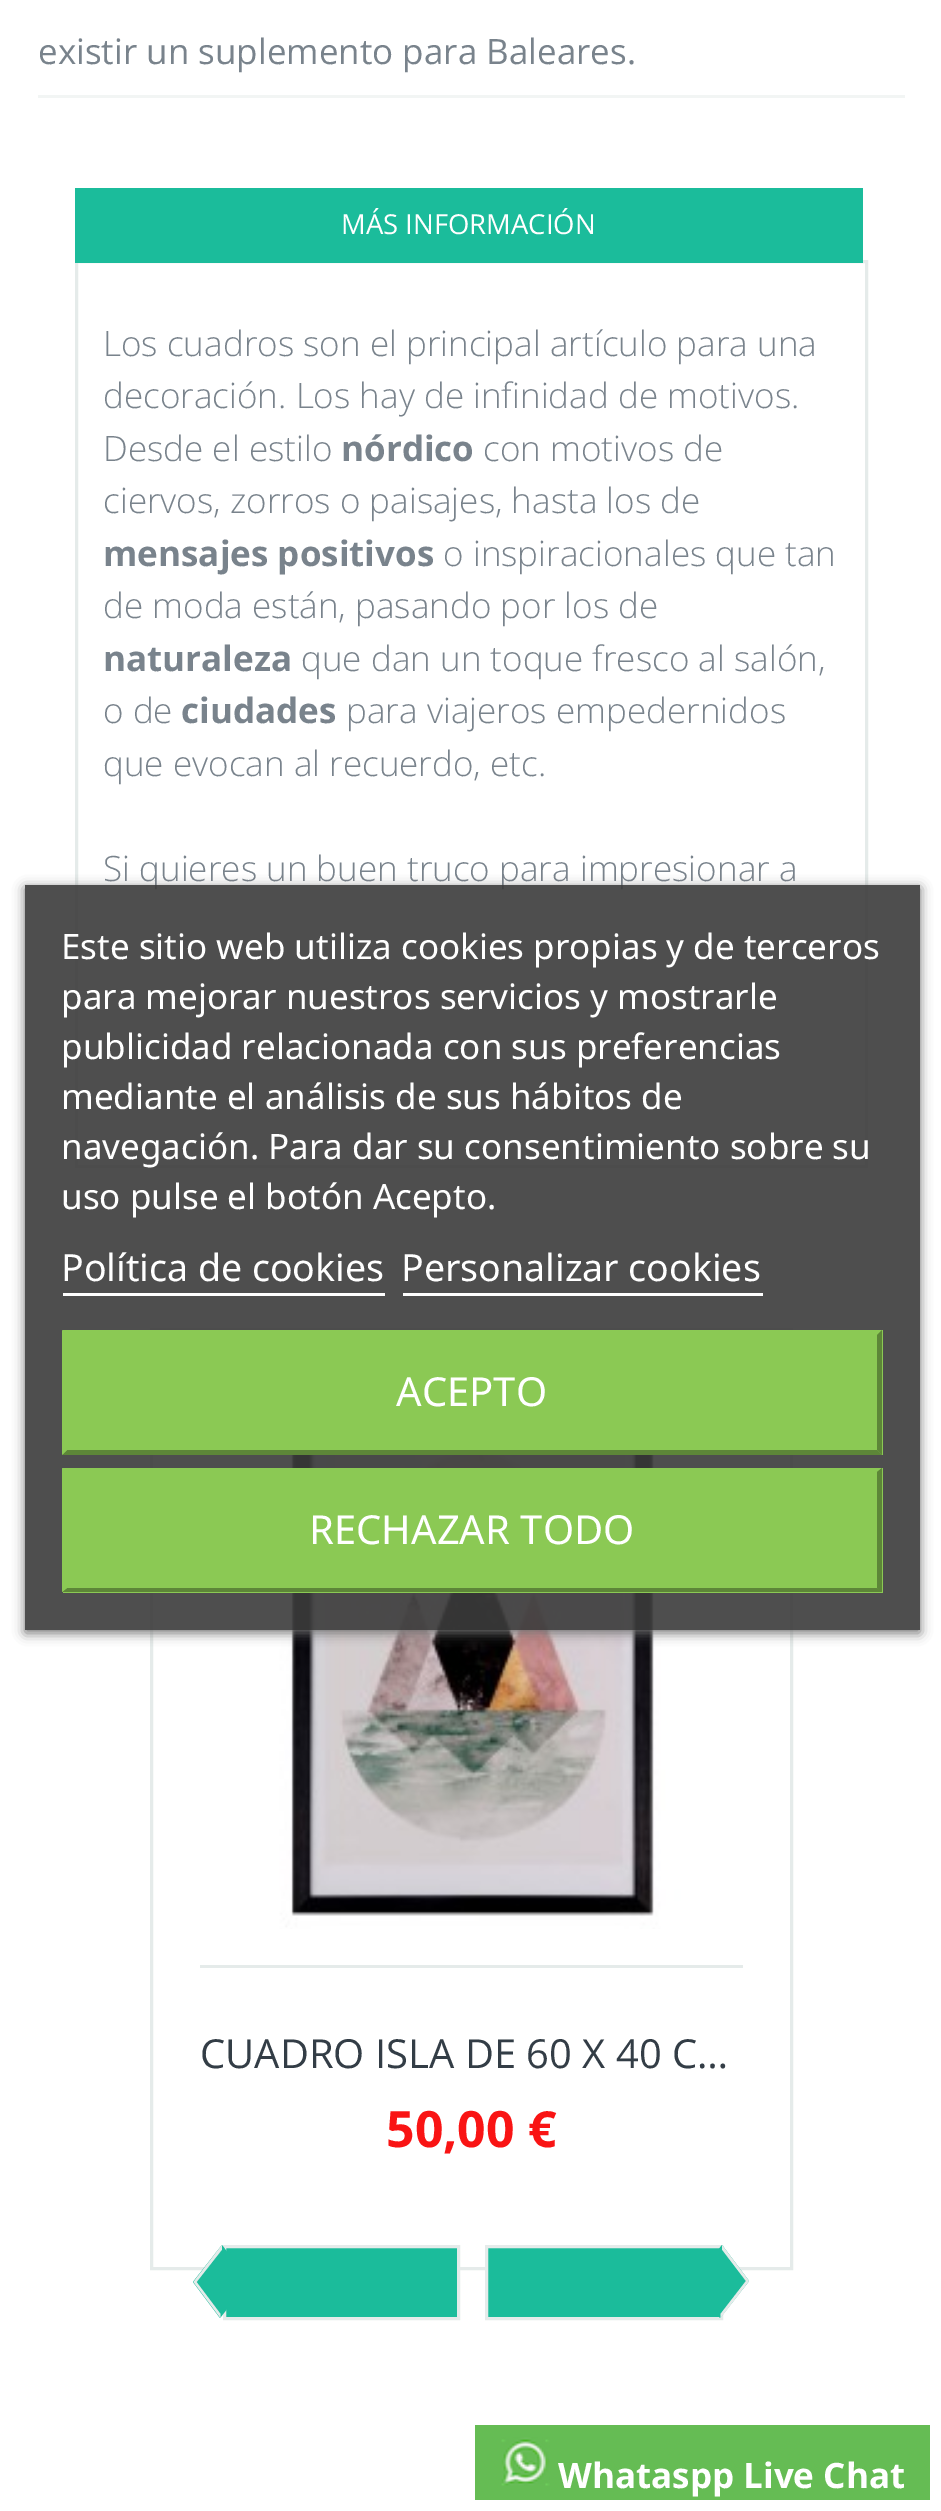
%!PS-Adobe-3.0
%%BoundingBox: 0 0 941 2511
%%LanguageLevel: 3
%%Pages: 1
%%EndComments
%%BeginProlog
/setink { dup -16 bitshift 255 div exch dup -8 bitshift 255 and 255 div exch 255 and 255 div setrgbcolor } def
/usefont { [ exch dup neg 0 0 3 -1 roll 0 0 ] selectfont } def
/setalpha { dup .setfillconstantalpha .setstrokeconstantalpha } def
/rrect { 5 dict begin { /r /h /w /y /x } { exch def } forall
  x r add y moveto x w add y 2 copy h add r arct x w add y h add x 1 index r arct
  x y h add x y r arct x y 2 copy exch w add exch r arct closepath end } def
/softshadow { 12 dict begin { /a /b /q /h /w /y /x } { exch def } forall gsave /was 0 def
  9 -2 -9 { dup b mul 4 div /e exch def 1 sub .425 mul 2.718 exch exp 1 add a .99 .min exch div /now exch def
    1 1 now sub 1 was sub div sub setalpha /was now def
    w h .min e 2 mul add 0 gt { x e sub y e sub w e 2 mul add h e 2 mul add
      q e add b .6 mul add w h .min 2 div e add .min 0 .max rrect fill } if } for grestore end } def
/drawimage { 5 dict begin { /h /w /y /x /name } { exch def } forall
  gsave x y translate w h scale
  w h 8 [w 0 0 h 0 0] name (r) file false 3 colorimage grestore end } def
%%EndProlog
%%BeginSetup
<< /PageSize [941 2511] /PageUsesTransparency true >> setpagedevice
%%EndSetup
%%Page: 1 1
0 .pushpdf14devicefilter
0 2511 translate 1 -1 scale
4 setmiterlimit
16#FFFFFF setink
0 0 941 2511 rectfill
16#F2F5F4 setink
38 95 867 3 rectfill
/OpenSans-Regular 35 usefont
16#79838C setink
38 64 moveto (existir un suplemento para Baleares.) show
16#E5EBEA setink
3 setlinewidth
76.5 261.5 790 905 rectstroke
16#1BBC9B setink
75 188 788 75 rectfill
/OpenSans-Regular 27.5 usefont
16#FFFFFF setink
341 234 moveto (MÁS INFORMACIÓN) show
/OpenSans-Light 35 usefont
16#79838C setink
[
    [(Los cuadros son el principal artículo para una) 103 356]
    [(decoración. Los hay de infinidad de motivos.) 103 408]
    [(Desde el estilo) 103 461]
] { aload pop moveto show } forall
/OpenSans-Bold 35 usefont
341 461 moveto (nórdico) show
/OpenSans-Light 35 usefont
483 461 moveto (con motivos de) show
103 513 moveto (ciervos, zorros o paisajes, hasta los de) show
/OpenSans-Bold 35 usefont
103 566 moveto (mensajes positivos) show
/OpenSans-Light 35 usefont
443 566 moveto (o inspiracionales que tan) show
103 618 moveto (de moda están, pasando por los de) show
/OpenSans-Bold 35 usefont
103 671 moveto (naturaleza) show
/OpenSans-Light 35 usefont
301 671 moveto (que dan un toque fresco al salón,) show
103 723 moveto (o de) show
/OpenSans-Bold 35 usefont
181 723 moveto (ciudades) show
/OpenSans-Light 35 usefont
[
    [(para viajeros empedernidos) 346 723]
    [(que evocan al recuerdo, etc.) 103 776]
    [(Si quieres un buen truco para impresionar a) 103 881]
] { aload pop moveto show } forall
16#E5EBEA setink
151.5 1329.5 640 939 rectstroke
(img1.raw) 160 1455 625 474 drawimage
200 1965 543 3 rectfill
/OpenSans-Regular 40 usefont
16#333D46 setink
200 2068 moveto (CUADRO ISLA DE 60 X 40 C…) show
/OpenSans-Bold 50 usefont
16#F91414 setink
386 2147 moveto (50,00 €) show
16#1BBC9B setink
224.5 2246.5 moveto 458.5 2246.5 lineto 458.5 2318.5 lineto 224.5 2318.5 lineto closepath gsave fill grestore
16#E5EBEA setink
stroke
16#1BBC9B setink
222 2245 moveto 249 2281 lineto 220 2318 lineto 193 2282 lineto closepath fill
16#E5EBEA setink
220.5 2318 moveto 193.5 2282 lineto 196.5 2282 lineto 220.5 2314 lineto closepath fill
193.5 2282 moveto 222 2245 lineto 222 2249.5 lineto 196.5 2282 lineto closepath fill
16#1BBC9B setink
486.5 2246.5 moveto 721.5 2246.5 lineto 721.5 2318.5 lineto 486.5 2318.5 lineto closepath gsave fill grestore
16#E5EBEA setink
stroke
16#1BBC9B setink
722 2245 moveto 749 2281 lineto 720 2318 lineto 693 2282 lineto closepath fill
16#E5EBEA setink
722 2245 moveto 749 2281 lineto 746 2281 lineto 722 2249.5 lineto closepath fill
749 2281 moveto 720.5 2318 lineto 720.5 2314 lineto 746 2281 lineto closepath fill
gsave
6 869 moveto 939 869 lineto 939 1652 lineto 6 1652 lineto closepath 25 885 moveto 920 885 lineto 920 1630 lineto 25 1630 lineto closepath eoclip newpath
16#707070 setink
25 888 895 745 0 6 1 softshadow
grestore
0.9 setalpha
16#3B3B3B setink
25 885 895 745 rectfill
/NotoSans-Regular 35 usefont
1 setalpha
16#FFFFFF setink
[
    [(Este sitio web utiliza cookies propias y de terceros) 61 959]
    [(para mejorar nuestros servicios y mostrarle) 61 1009]
    [(publicidad relacionada con sus preferencias) 61 1059]
    [(mediante el análisis de sus hábitos de) 61 1109]
    [(navegación. Para dar su consentimiento sobre su) 61 1159]
    [(uso pulse el botón Acepto.) 61 1209]
] { aload pop moveto show } forall
/NotoSans-Regular 37.5 usefont
61 1281 moveto (Política de cookies) show
63 1293 322 3 rectfill
401 1281 moveto (Personalizar cookies) show
403 1293 360 3 rectfill
16#8BC954 setink
63 1330 820 125 rectfill
62 1330 moveto 882 1330 lineto 877 1335 lineto 67 1335 lineto closepath fill
16#5D8638 setink
882 1330 moveto 882 1455 lineto 877 1450 lineto 877 1335 lineto closepath fill
882 1455 moveto 62 1455 lineto 67 1450 lineto 877 1450 lineto closepath fill
16#8BC954 setink
62 1455 moveto 62 1330 lineto 67 1335 lineto 67 1450 lineto closepath fill
/NotoSans-Regular 40 usefont
16#FFFFFF setink
396 1406 moveto (ACEPTO) show
16#8BC954 setink
63 1468 820 125 rectfill
62 1468 moveto 882 1468 lineto 877 1472 lineto 67 1472 lineto closepath fill
16#5D8638 setink
882 1468 moveto 882 1592 lineto 877 1588 lineto 877 1472 lineto closepath fill
882 1592 moveto 62 1592 lineto 67 1588 lineto 877 1588 lineto closepath fill
16#8BC954 setink
62 1592 moveto 62 1468 lineto 67 1472 lineto 67 1588 lineto closepath fill
16#FFFFFF setink
309 1544 moveto (RECHAZAR TODO) show
16#65BC54 setink
475 2425 455 75 rectfill
(img2.raw) 501 2437 49 49 drawimage
/OpenSans-Bold 35 usefont
16#FFFFFF setink
558 2488 moveto (Whataspp Live Chat) show
.poppdf14devicefilter showpage
%%EOF
